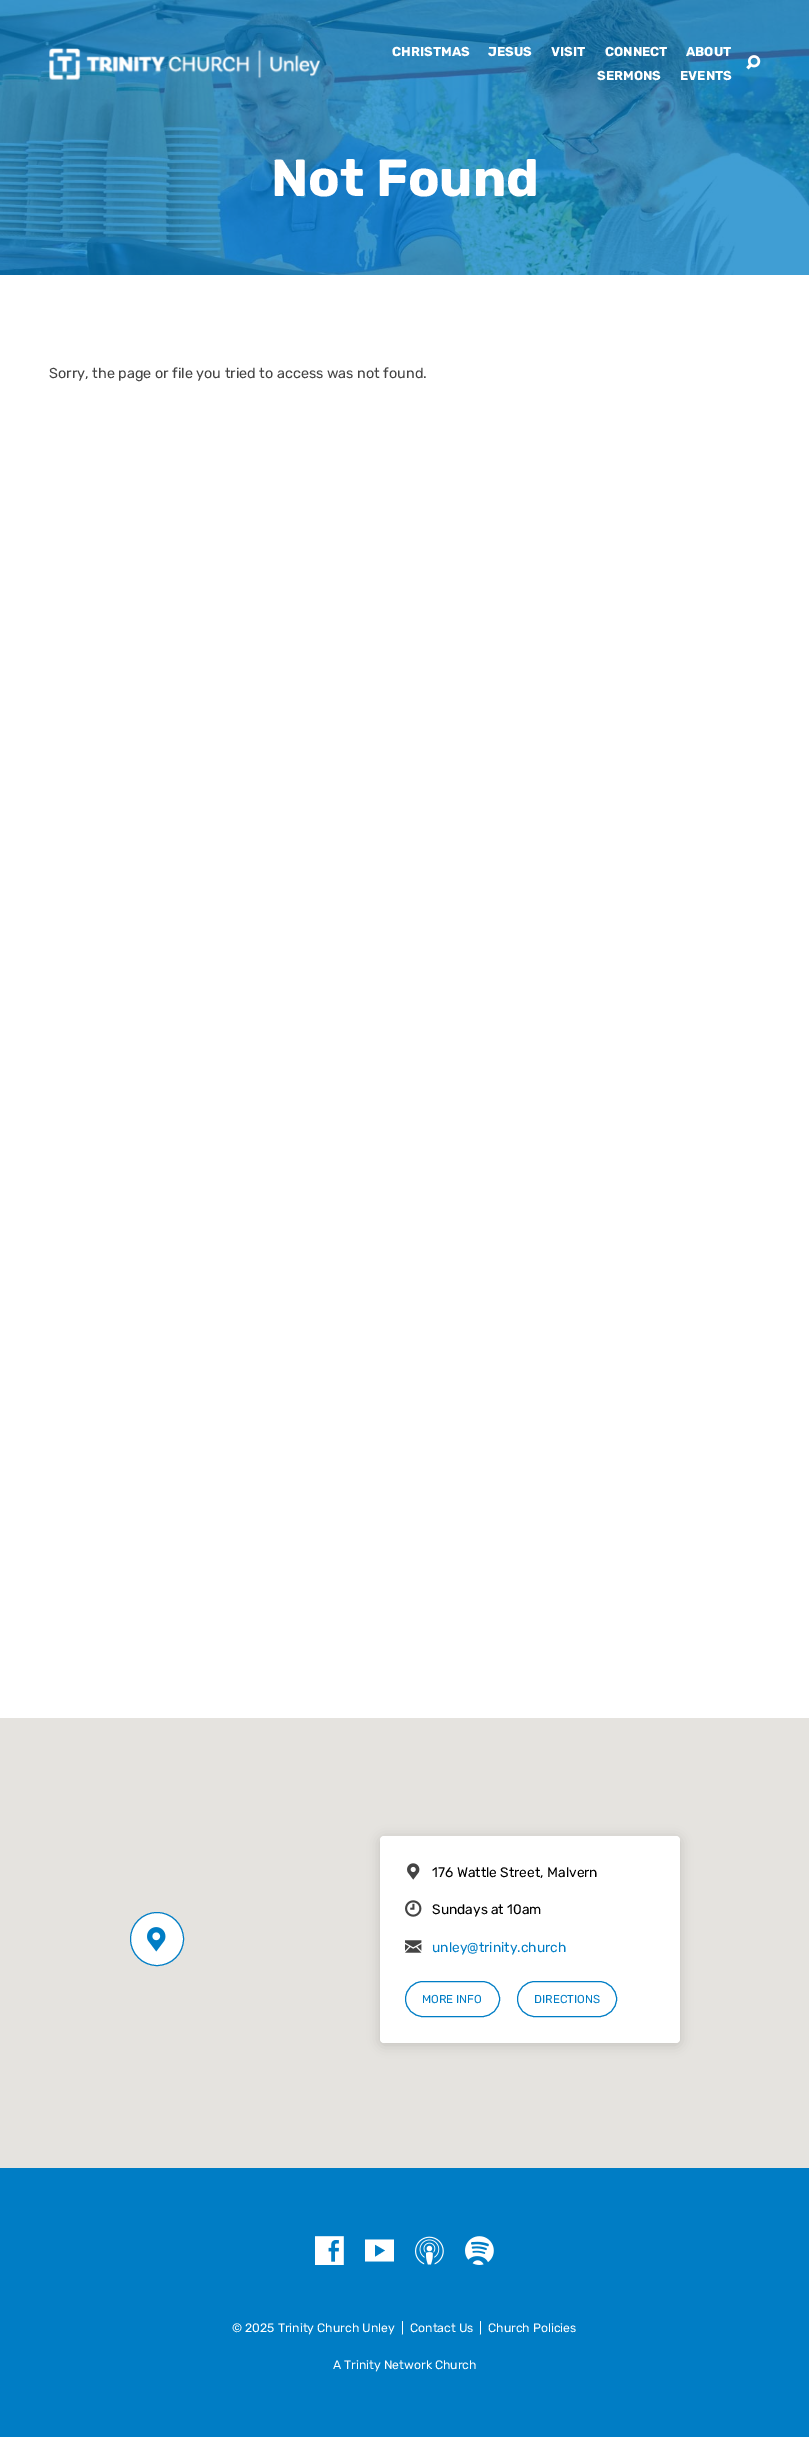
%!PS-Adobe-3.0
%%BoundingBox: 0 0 809 2437
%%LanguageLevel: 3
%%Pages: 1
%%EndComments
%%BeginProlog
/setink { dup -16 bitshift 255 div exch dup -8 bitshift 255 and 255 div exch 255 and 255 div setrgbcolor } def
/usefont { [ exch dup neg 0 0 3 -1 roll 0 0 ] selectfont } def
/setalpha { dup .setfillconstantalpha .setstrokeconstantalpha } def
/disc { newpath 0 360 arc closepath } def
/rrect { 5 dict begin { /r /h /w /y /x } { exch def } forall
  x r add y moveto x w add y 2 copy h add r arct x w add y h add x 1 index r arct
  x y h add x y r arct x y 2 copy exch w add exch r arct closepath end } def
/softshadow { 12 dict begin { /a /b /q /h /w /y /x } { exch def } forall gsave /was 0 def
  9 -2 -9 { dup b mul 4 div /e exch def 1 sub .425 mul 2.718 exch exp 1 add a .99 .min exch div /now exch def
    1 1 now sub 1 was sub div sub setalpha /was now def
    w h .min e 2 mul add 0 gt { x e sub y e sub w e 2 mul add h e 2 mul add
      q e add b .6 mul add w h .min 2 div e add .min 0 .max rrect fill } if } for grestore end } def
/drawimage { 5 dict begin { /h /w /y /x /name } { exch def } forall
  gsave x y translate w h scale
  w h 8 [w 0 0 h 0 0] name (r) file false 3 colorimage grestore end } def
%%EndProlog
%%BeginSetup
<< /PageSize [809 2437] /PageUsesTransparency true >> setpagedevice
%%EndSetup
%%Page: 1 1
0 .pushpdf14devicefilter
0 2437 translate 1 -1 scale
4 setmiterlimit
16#FFFFFF setink
0 0 809 2437 rectfill
16#007DC5 setink
0 0 809 275 rectfill
(img3.raw) 0 0 809 275 drawimage
(img1.raw) 49 48 271 32 drawimage
/Rubik-Bold 13 usefont
16#FFFFFF setink
[
    [(CHRISTMAS) 392 56]
    [(JESUS) 488 56]
    [(VISIT) 551 56]
    [(CONNECT) 605 56]
    [(ABOUT) 686 56]
    [(SERMONS) 597 80]
    [(EVENTS) 680 80]
] { aload pop moveto show } forall
(img2.raw) 746 55 15 15 drawimage
/Rubik-Bold 52 usefont
271 196 moveto (Not Found) show
/Rubik-Regular 14.4 usefont
16#444444 setink
49 378 moveto (Sorry, the page or file you tried to access was not found.) show
16#E5E3DF setink
0 1718 809 450 rectfill
16#FFFFFF setink
157 1939 26.5 disc gsave fill grestore
16#007DC5 setink
stroke
(img4.raw) 147 1927 19 25 drawimage
16#000000 setink
380 1838 300 207 4 6 0.15 softshadow
16#FFFFFF setink
380 1836 300 207 4 rrect fill
(img5.raw) 407 1863 13 17 drawimage
/Rubik-Regular 13.75 usefont
16#000000 setink
432 1877 moveto (176 Wattle Street, Malvern) show
(img6.raw) 405 1900 17 17 drawimage
432 1914 moveto (Sundays at 10am) show
(img7.raw) 405 1940 17 13 drawimage
16#007DC5 setink
432 1952 moveto (unley@trinity.church) show
405.5 1981.5 94 35 17.5 rrect stroke
/Rubik-Regular 11.5 usefont
422 2003 moveto (MORE INFO) show
517.5 1981.5 99 35 17.5 rrect stroke
534 2003 moveto (DIRECTIONS) show
0 2168 809 269 rectfill
(img8.raw) 315 2236 29 29 drawimage
16#FFFFFF setink
394 2261.5 moveto 365 2261.5 lineto 365 2239.5 lineto 394 2239.5 lineto closepath 375 2257 moveto 385.5 2250.5 lineto 375 2244.5 lineto closepath fill
(img9.raw) 415 2236 29 29 drawimage
(img10.raw) 465 2236 29 29 drawimage
/Rubik-Regular 12.25 usefont
[
    [(© 2025 Trinity Church Unley  |) 232 2332]
    [(Contact Us) 410 2332]
    [(|) 479 2332]
    [(Church Policies) 488 2332]
    [(A Trinity Network Church) 333 2369]
] { aload pop moveto show } forall
.poppdf14devicefilter showpage
%%EOF
